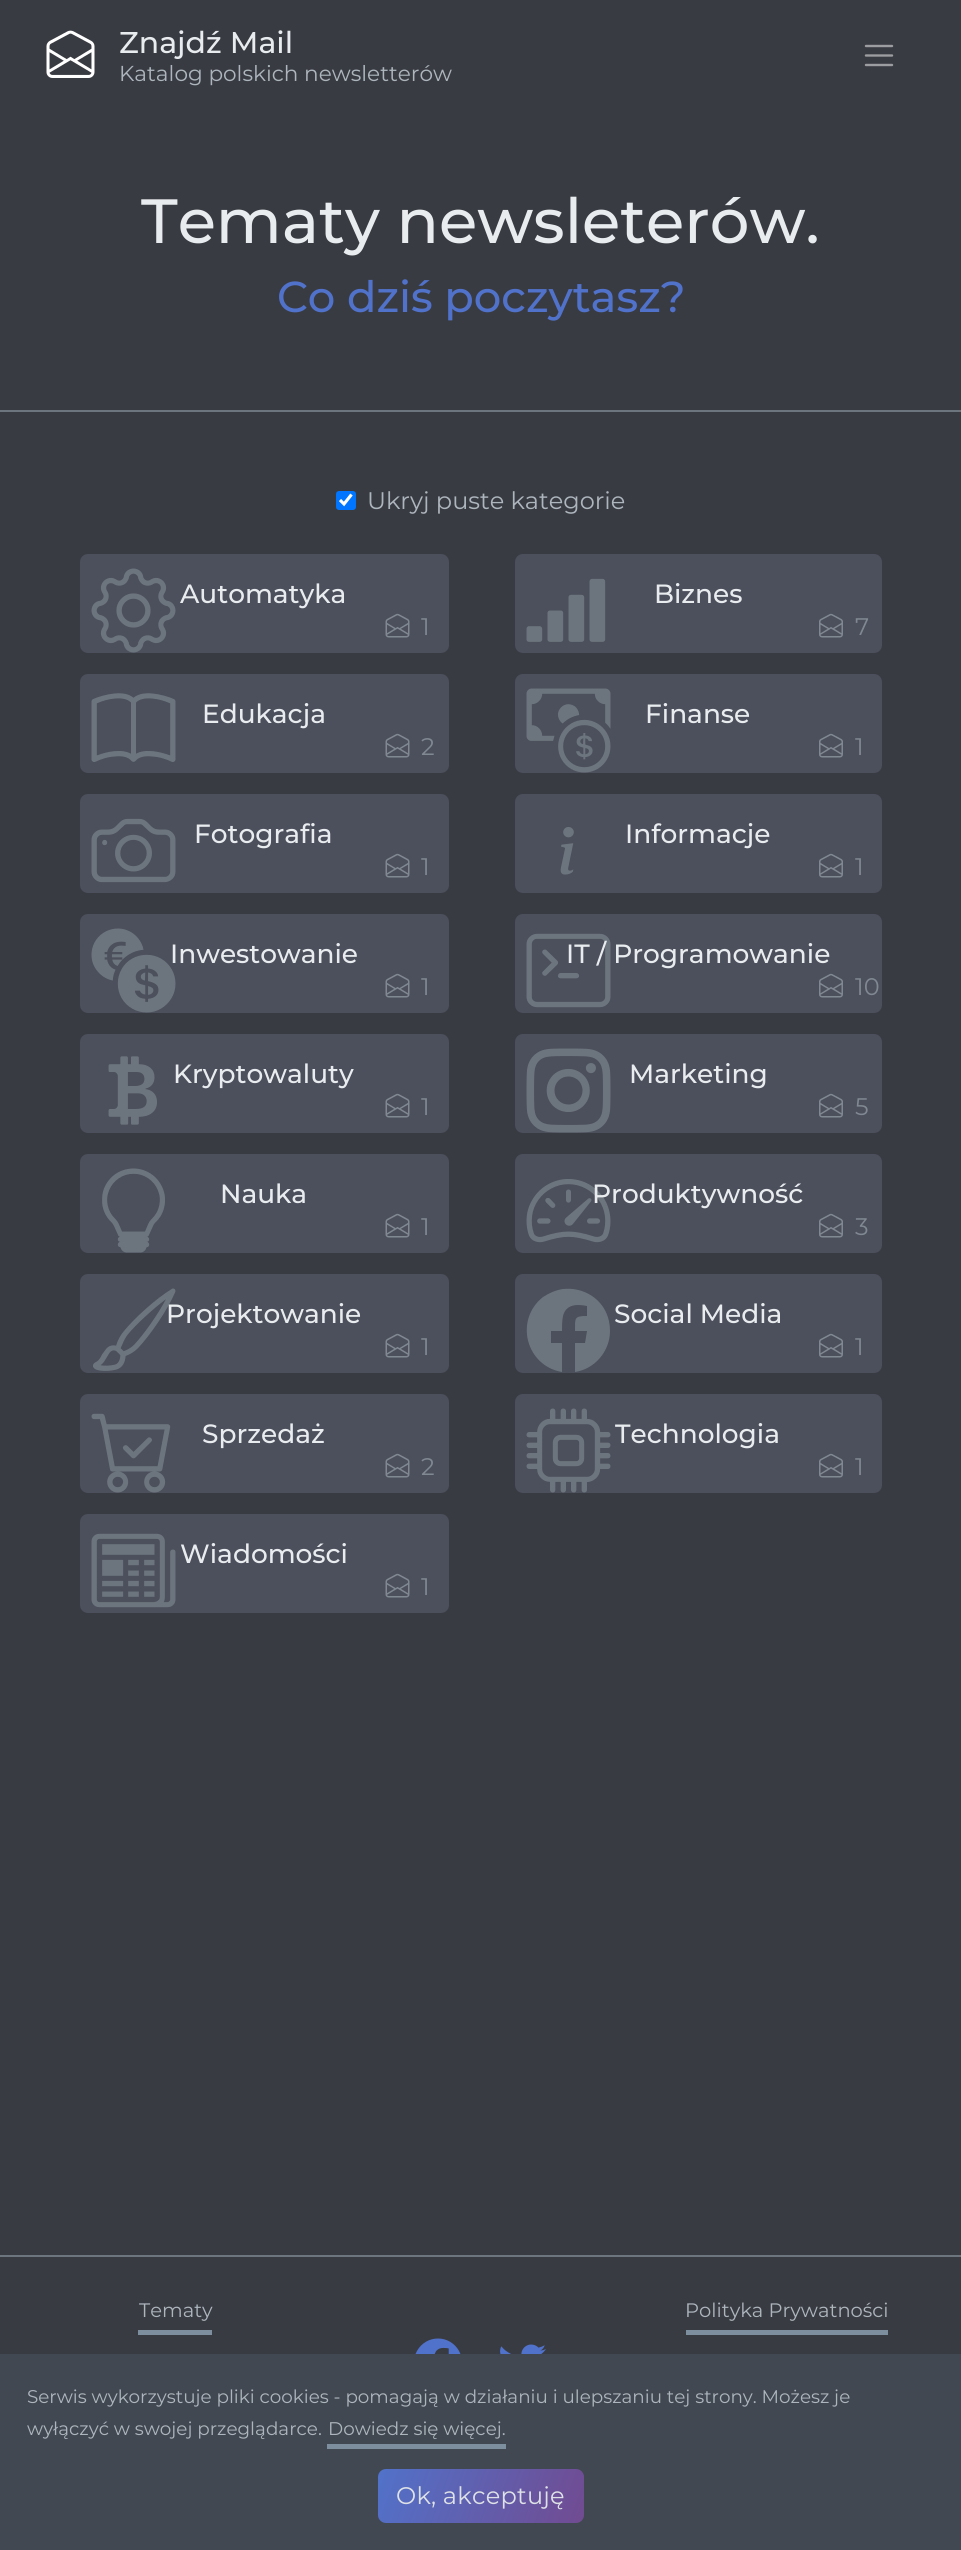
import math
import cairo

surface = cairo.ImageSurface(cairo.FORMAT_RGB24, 961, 2550)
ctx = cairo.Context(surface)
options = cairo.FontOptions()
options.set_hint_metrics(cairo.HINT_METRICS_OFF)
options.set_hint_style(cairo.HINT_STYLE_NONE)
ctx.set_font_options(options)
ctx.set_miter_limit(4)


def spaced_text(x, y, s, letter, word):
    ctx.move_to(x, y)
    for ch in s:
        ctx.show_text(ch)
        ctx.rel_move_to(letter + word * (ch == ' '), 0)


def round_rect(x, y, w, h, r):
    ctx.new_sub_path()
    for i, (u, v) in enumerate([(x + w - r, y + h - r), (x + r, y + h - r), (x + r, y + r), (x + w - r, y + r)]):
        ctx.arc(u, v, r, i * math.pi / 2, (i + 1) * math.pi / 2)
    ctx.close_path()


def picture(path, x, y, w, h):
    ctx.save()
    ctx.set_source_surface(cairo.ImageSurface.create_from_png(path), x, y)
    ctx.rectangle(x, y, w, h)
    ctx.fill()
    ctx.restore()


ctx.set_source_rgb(0.224, 0.231, 0.259)
ctx.paint()
picture("img1.png", 46, 30, 49, 48)
ctx.select_font_face("Montserrat Medium")
ctx.set_font_size(30)
ctx.set_source_rgb(0.914, 0.925, 0.937)
ctx.move_to(119, 53)
ctx.show_text("Znajdź Mail")
ctx.select_font_face("Montserrat")
ctx.set_font_size(21.6)
ctx.set_source_rgb(0.678, 0.71, 0.741)
ctx.move_to(119, 81)
ctx.show_text("Katalog polskich newsletterów")
ctx.new_path()
ctx.move_to(866, 46)
ctx.line_to(892, 46)
ctx.move_to(866, 55.5)
ctx.line_to(892, 55.5)
ctx.move_to(866, 65)
ctx.line_to(892, 65)
ctx.set_source_rgb(0.612, 0.616, 0.631)
ctx.set_line_width(2.4)
ctx.set_line_cap(cairo.LINE_CAP_ROUND)
ctx.stroke()
ctx.set_source_rgb(0.424, 0.459, 0.49)
ctx.rectangle(0, 410, 961, 2)
ctx.fill()
ctx.select_font_face("Montserrat Medium")
ctx.set_font_size(62.4)
ctx.set_source_rgb(0.914, 0.925, 0.937)
ctx.move_to(141, 243)
ctx.show_text("Tematy newsleterów.")
ctx.set_font_size(43.25)
ctx.set_source_rgb(0.318, 0.447, 0.792)
ctx.move_to(277, 312)
ctx.show_text("Co dziś poczytasz?")
ctx.set_source_rgb(0, 0.459, 1)
round_rect(336, 491, 20, 19, 3)
ctx.fill()
ctx.new_path()
ctx.move_to(340, 500)
ctx.line_to(344, 504)
ctx.line_to(351.5, 494.5)
ctx.set_source_rgb(1, 1, 1)
ctx.set_line_width(3.1)
ctx.set_line_cap(cairo.LINE_CAP_BUTT)
ctx.stroke()
ctx.select_font_face("Montserrat")
ctx.set_font_size(24)
ctx.set_source_rgb(0.678, 0.71, 0.741)
ctx.move_to(367, 509)
ctx.show_text("Ukryj puste kategorie")
ctx.set_source_rgb(0.298, 0.31, 0.361)
round_rect(80, 554, 369, 99, 8)
ctx.fill()
picture("img2.png", 91, 568, 85, 85)
ctx.select_font_face("Montserrat Medium")
ctx.set_font_size(26.4)
ctx.set_source_rgb(0.914, 0.925, 0.937)
ctx.move_to(180, 603)
ctx.show_text("Automatyka")
picture("img3.png", 385, 613, 25, 25)
ctx.select_font_face("Montserrat")
ctx.set_font_size(24)
ctx.set_source_rgb(0.502, 0.533, 0.569)
ctx.move_to(421, 635)
ctx.show_text("1")
ctx.set_source_rgb(0.298, 0.31, 0.361)
round_rect(515, 554, 367, 99, 8)
ctx.fill()
picture("img4.png", 526, 578, 80, 64)
ctx.select_font_face("Montserrat Medium")
ctx.set_font_size(26.4)
ctx.set_source_rgb(0.914, 0.925, 0.937)
ctx.move_to(654, 603)
ctx.show_text("Biznes")
picture("img5.png", 819, 613, 24, 25)
ctx.select_font_face("Montserrat")
ctx.set_font_size(24)
ctx.set_source_rgb(0.502, 0.533, 0.569)
ctx.move_to(855, 635)
ctx.show_text("7")
ctx.set_source_rgb(0.298, 0.31, 0.361)
round_rect(80, 674, 369, 99, 8)
ctx.fill()
picture("img6.png", 91, 693, 85, 69)
ctx.select_font_face("Montserrat Medium")
ctx.set_font_size(26.4)
ctx.set_source_rgb(0.914, 0.925, 0.937)
ctx.move_to(202, 723)
ctx.show_text("Edukacja")
picture("img3.png", 385, 733, 25, 25)
ctx.select_font_face("Montserrat")
ctx.set_font_size(24)
ctx.set_source_rgb(0.502, 0.533, 0.569)
ctx.move_to(421, 755)
ctx.show_text("2")
ctx.set_source_rgb(0.298, 0.31, 0.361)
round_rect(515, 674, 367, 99, 8)
ctx.fill()
picture("img7.png", 526, 688, 85, 85)
ctx.select_font_face("Montserrat Medium")
ctx.set_font_size(26.4)
ctx.set_source_rgb(0.914, 0.925, 0.937)
ctx.move_to(645, 723)
ctx.show_text("Finanse")
picture("img5.png", 819, 733, 24, 25)
ctx.select_font_face("Montserrat")
ctx.set_font_size(24)
ctx.set_source_rgb(0.502, 0.533, 0.569)
ctx.move_to(855, 755)
ctx.show_text("1")
ctx.set_source_rgb(0.298, 0.31, 0.361)
round_rect(80, 794, 369, 99, 8)
ctx.fill()
picture("img8.png", 91, 818, 85, 65)
ctx.select_font_face("Montserrat Medium")
ctx.set_font_size(26.4)
ctx.set_source_rgb(0.914, 0.925, 0.937)
ctx.move_to(194, 843)
ctx.show_text("Fotografia")
picture("img3.png", 385, 853, 25, 25)
ctx.select_font_face("Montserrat")
ctx.set_font_size(24)
ctx.set_source_rgb(0.502, 0.533, 0.569)
ctx.move_to(421, 875)
ctx.show_text("1")
ctx.set_source_rgb(0.298, 0.31, 0.361)
round_rect(515, 794, 367, 99, 8)
ctx.fill()
picture("img9.png", 560, 827, 14, 48)
ctx.select_font_face("Montserrat Medium")
ctx.set_font_size(26.4)
ctx.set_source_rgb(0.914, 0.925, 0.937)
ctx.move_to(625, 843)
ctx.show_text("Informacje")
picture("img5.png", 819, 853, 24, 25)
ctx.select_font_face("Montserrat")
ctx.set_font_size(24)
ctx.set_source_rgb(0.502, 0.533, 0.569)
ctx.move_to(855, 875)
ctx.show_text("1")
ctx.set_source_rgb(0.298, 0.31, 0.361)
round_rect(80, 914, 369, 99, 8)
ctx.fill()
picture("img10.png", 91, 928, 85, 85)
ctx.select_font_face("Montserrat Medium")
ctx.set_font_size(26.4)
ctx.set_source_rgb(0.914, 0.925, 0.937)
ctx.move_to(170, 963)
ctx.show_text("Inwestowanie")
picture("img3.png", 385, 973, 25, 25)
ctx.select_font_face("Montserrat")
ctx.set_font_size(24)
ctx.set_source_rgb(0.502, 0.533, 0.569)
ctx.move_to(421, 995)
ctx.show_text("1")
ctx.set_source_rgb(0.298, 0.31, 0.361)
round_rect(515, 914, 367, 99, 8)
ctx.fill()
picture("img11.png", 526, 933, 85, 75)
ctx.select_font_face("Montserrat Medium")
ctx.set_font_size(26.4)
ctx.set_source_rgb(0.914, 0.925, 0.937)
ctx.move_to(566, 963)
ctx.show_text("IT / Programowanie")
picture("img5.png", 819, 973, 24, 25)
ctx.select_font_face("Montserrat")
ctx.set_font_size(24)
ctx.set_source_rgb(0.502, 0.533, 0.569)
ctx.move_to(855, 995)
ctx.show_text("10")
ctx.set_source_rgb(0.298, 0.31, 0.361)
round_rect(80, 1034, 369, 99, 8)
ctx.fill()
picture("img12.png", 108, 1056, 49, 69)
ctx.select_font_face("Montserrat Medium")
ctx.set_font_size(26.4)
ctx.set_source_rgb(0.914, 0.925, 0.937)
ctx.move_to(173, 1083)
ctx.show_text("Kryptowaluty")
picture("img3.png", 385, 1093, 25, 25)
ctx.select_font_face("Montserrat")
ctx.set_font_size(24)
ctx.set_source_rgb(0.502, 0.533, 0.569)
ctx.move_to(421, 1115)
ctx.show_text("1")
ctx.set_source_rgb(0.298, 0.31, 0.361)
round_rect(515, 1034, 367, 99, 8)
ctx.fill()
picture("img13.png", 526, 1048, 85, 85)
ctx.select_font_face("Montserrat Medium")
ctx.set_font_size(26.4)
ctx.set_source_rgb(0.914, 0.925, 0.937)
ctx.move_to(629, 1083)
ctx.show_text("Marketing")
picture("img5.png", 819, 1093, 24, 25)
ctx.select_font_face("Montserrat")
ctx.set_font_size(24)
ctx.set_source_rgb(0.502, 0.533, 0.569)
ctx.move_to(855, 1115)
ctx.show_text("5")
ctx.set_source_rgb(0.298, 0.31, 0.361)
round_rect(80, 1154, 369, 99, 8)
ctx.fill()
picture("img14.png", 102, 1168, 63, 85)
ctx.select_font_face("Montserrat Medium")
ctx.set_font_size(26.4)
ctx.set_source_rgb(0.914, 0.925, 0.937)
ctx.move_to(220, 1203)
ctx.show_text("Nauka")
picture("img3.png", 385, 1213, 25, 25)
ctx.select_font_face("Montserrat")
ctx.set_font_size(24)
ctx.set_source_rgb(0.502, 0.533, 0.569)
ctx.move_to(421, 1235)
ctx.show_text("1")
ctx.set_source_rgb(0.298, 0.31, 0.361)
round_rect(515, 1154, 367, 99, 8)
ctx.fill()
picture("img15.png", 526, 1179, 85, 64)
ctx.select_font_face("Montserrat Medium")
ctx.set_font_size(26.4)
ctx.set_source_rgb(0.914, 0.925, 0.937)
ctx.move_to(592, 1203)
ctx.show_text("Produktywność")
picture("img5.png", 819, 1213, 24, 25)
ctx.select_font_face("Montserrat")
ctx.set_font_size(24)
ctx.set_source_rgb(0.502, 0.533, 0.569)
ctx.move_to(855, 1235)
ctx.show_text("3")
ctx.set_source_rgb(0.298, 0.31, 0.361)
round_rect(80, 1274, 369, 99, 8)
ctx.fill()
picture("img16.png", 93, 1288, 83, 83)
ctx.select_font_face("Montserrat Medium")
ctx.set_font_size(26.4)
ctx.set_source_rgb(0.914, 0.925, 0.937)
ctx.move_to(166, 1323)
ctx.show_text("Projektowanie")
picture("img3.png", 385, 1333, 25, 25)
ctx.select_font_face("Montserrat")
ctx.set_font_size(24)
ctx.set_source_rgb(0.502, 0.533, 0.569)
ctx.move_to(421, 1355)
ctx.show_text("1")
ctx.set_source_rgb(0.298, 0.31, 0.361)
round_rect(515, 1274, 367, 99, 8)
ctx.fill()
ctx.set_source_rgb(0.424, 0.459, 0.49)
ctx.new_path()
ctx.move_to(610, 1331)
ctx.curve_to(610, 1317, 604, 1304, 592, 1296)
ctx.curve_to(583, 1290, 573, 1288, 563, 1289)
ctx.curve_to(556, 1290, 549, 1293, 543, 1297)
ctx.curve_to(514, 1320, 526, 1366, 562, 1372)
ctx.line_to(562, 1343)
ctx.line_to(551, 1343)
ctx.line_to(551, 1331)
ctx.line_to(562, 1331)
ctx.curve_to(562, 1326, 562, 1321, 563, 1316)
ctx.curve_to(566, 1304, 577, 1304, 587, 1306)
ctx.line_to(587, 1316)
ctx.curve_to(574, 1316, 575, 1318, 575, 1331)
ctx.line_to(587, 1331)
ctx.line_to(585, 1343)
ctx.line_to(575, 1343)
ctx.line_to(575, 1372)
ctx.curve_to(595, 1369, 610, 1351, 610, 1331)
ctx.close_path()
ctx.fill()
ctx.select_font_face("Montserrat Medium")
ctx.set_font_size(26.4)
ctx.set_source_rgb(0.914, 0.925, 0.937)
ctx.move_to(614, 1323)
ctx.show_text("Social Media")
picture("img5.png", 819, 1333, 24, 25)
ctx.select_font_face("Montserrat")
ctx.set_font_size(24)
ctx.set_source_rgb(0.502, 0.533, 0.569)
ctx.move_to(855, 1355)
ctx.show_text("1")
ctx.set_source_rgb(0.298, 0.31, 0.361)
round_rect(80, 1394, 369, 99, 8)
ctx.fill()
picture("img17.png", 91, 1413, 80, 80)
ctx.select_font_face("Montserrat Medium")
ctx.set_font_size(26.4)
ctx.set_source_rgb(0.914, 0.925, 0.937)
ctx.move_to(202, 1443)
ctx.show_text("Sprzedaż")
picture("img3.png", 385, 1453, 25, 25)
ctx.select_font_face("Montserrat")
ctx.set_font_size(24)
ctx.set_source_rgb(0.502, 0.533, 0.569)
ctx.move_to(421, 1475)
ctx.show_text("2")
ctx.set_source_rgb(0.298, 0.31, 0.361)
round_rect(515, 1394, 367, 99, 8)
ctx.fill()
picture("img18.png", 526, 1408, 85, 85)
ctx.select_font_face("Montserrat Medium")
ctx.set_font_size(26.4)
ctx.set_source_rgb(0.914, 0.925, 0.937)
ctx.move_to(615, 1443)
ctx.show_text("Technologia")
picture("img5.png", 819, 1453, 24, 25)
ctx.select_font_face("Montserrat")
ctx.set_font_size(24)
ctx.set_source_rgb(0.502, 0.533, 0.569)
ctx.move_to(855, 1475)
ctx.show_text("1")
ctx.set_source_rgb(0.298, 0.31, 0.361)
round_rect(80, 1514, 369, 99, 8)
ctx.fill()
picture("img19.png", 91, 1533, 85, 75)
ctx.select_font_face("Montserrat Medium")
ctx.set_font_size(26.4)
ctx.set_source_rgb(0.914, 0.925, 0.937)
ctx.move_to(180, 1563)
ctx.show_text("Wiadomości")
picture("img3.png", 385, 1573, 25, 25)
ctx.select_font_face("Montserrat")
ctx.set_font_size(24)
ctx.set_source_rgb(0.502, 0.533, 0.569)
ctx.move_to(421, 1595)
ctx.show_text("1")
ctx.set_source_rgb(0.424, 0.459, 0.49)
ctx.rectangle(0, 2255, 961, 2)
ctx.fill()
ctx.set_source_rgb(0.49, 0.557, 0.62)
ctx.rectangle(138, 2330, 74, 5)
ctx.fill()
ctx.set_font_size(19.5)
ctx.set_source_rgb(0.678, 0.71, 0.741)
ctx.move_to(139, 2317)
ctx.show_text("Tematy")
ctx.set_source_rgb(0.49, 0.557, 0.62)
ctx.rectangle(686, 2330, 202, 5)
ctx.fill()
ctx.set_source_rgb(0.678, 0.71, 0.741)
ctx.move_to(685, 2317)
ctx.show_text("Polityka Prywatności")
picture("img20.png", 415, 2338, 46, 16)
picture("img21.png", 500, 2344, 46, 10)
ctx.set_source_rgb(0.259, 0.282, 0.318)
ctx.rectangle(0, 2354, 961, 196)
ctx.fill()
ctx.set_font_size(18.35)
ctx.set_source_rgb(0.678, 0.71, 0.741)
ctx.move_to(27, 2403)
ctx.show_text("Serwis wykorzystuje pliki cookies - pomagają w działaniu i ulepszaniu tej strony. Możesz je")
ctx.move_to(27, 2435)
ctx.show_text("wyłączyć w swojej przeglądarce.")
ctx.move_to(328, 2435)
ctx.show_text("Dowiedz się więcej.")
ctx.set_source_rgb(0.49, 0.557, 0.62)
ctx.rectangle(327, 2444, 179, 5)
ctx.fill()
gradient = cairo.LinearGradient(381, 2460, 580, 2532)
gradient.add_color_stop_rgba(0, 0.318, 0.447, 0.792, 1)
gradient.add_color_stop_rgba(1, 0.443, 0.294, 0.569, 1)
ctx.set_source(gradient)
round_rect(378, 2469, 206, 54, 8)
ctx.fill()
ctx.set_font_size(24)
ctx.set_source_rgb(0.871, 0.886, 0.902)
spaced_text(396, 2504, "Ok, akceptuję", 0.25, 0)
surface.write_to_png("page.png")
